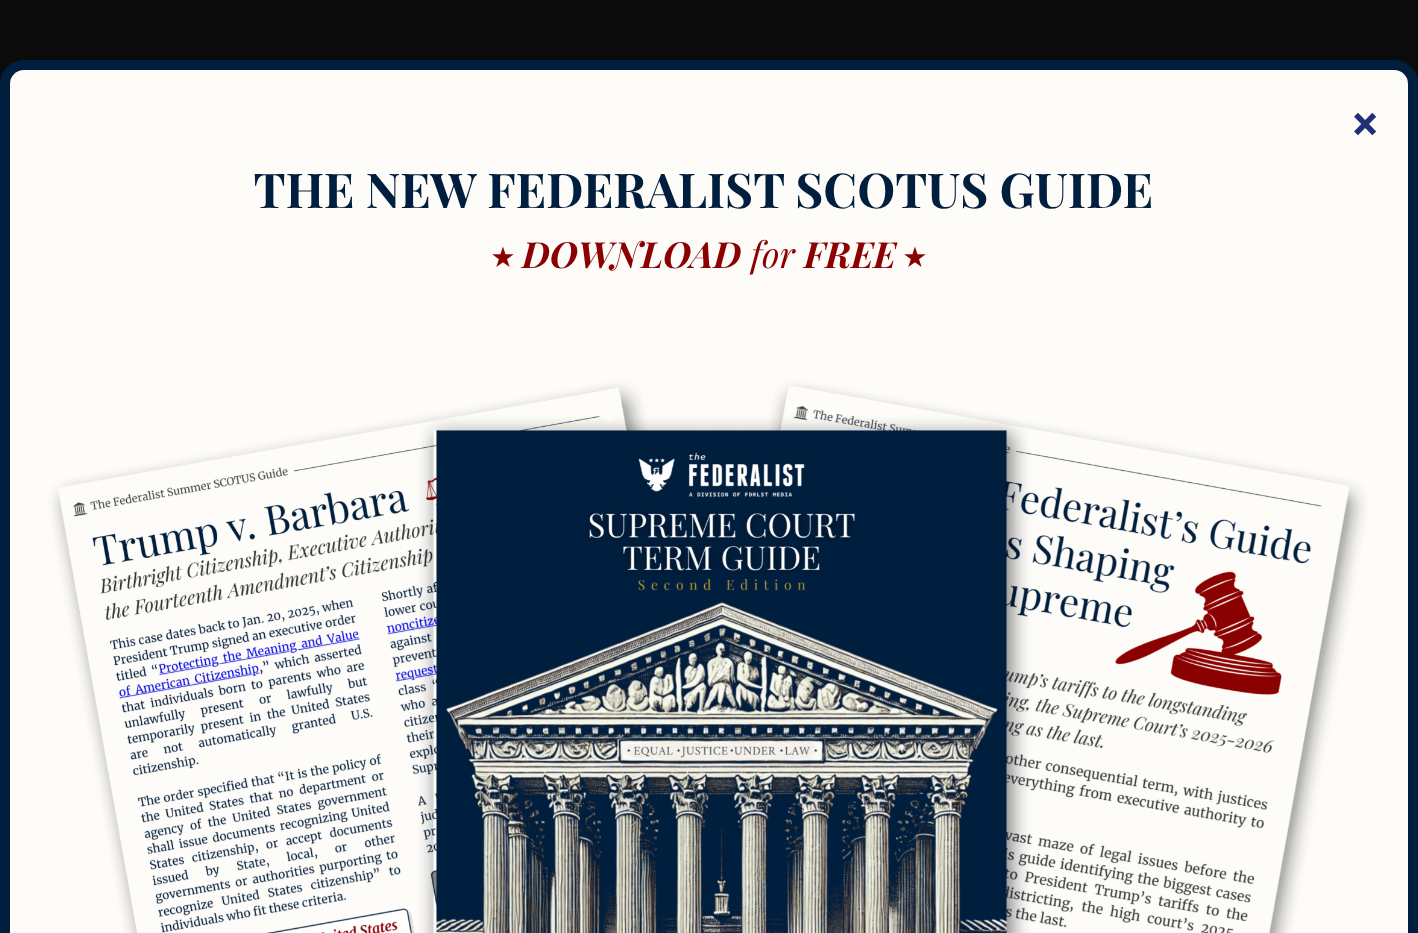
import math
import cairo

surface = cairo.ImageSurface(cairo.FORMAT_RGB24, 1418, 933)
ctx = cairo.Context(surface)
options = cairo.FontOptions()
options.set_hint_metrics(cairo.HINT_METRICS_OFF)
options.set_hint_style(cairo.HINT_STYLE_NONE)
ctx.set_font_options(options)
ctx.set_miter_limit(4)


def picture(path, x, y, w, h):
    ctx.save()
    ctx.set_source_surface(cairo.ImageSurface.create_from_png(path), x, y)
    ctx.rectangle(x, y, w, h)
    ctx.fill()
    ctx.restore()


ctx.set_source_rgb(0.043, 0.043, 0.043)
ctx.paint()
picture("img1.png", 0, 60, 1418, 873)
surface.write_to_png("page.png")
